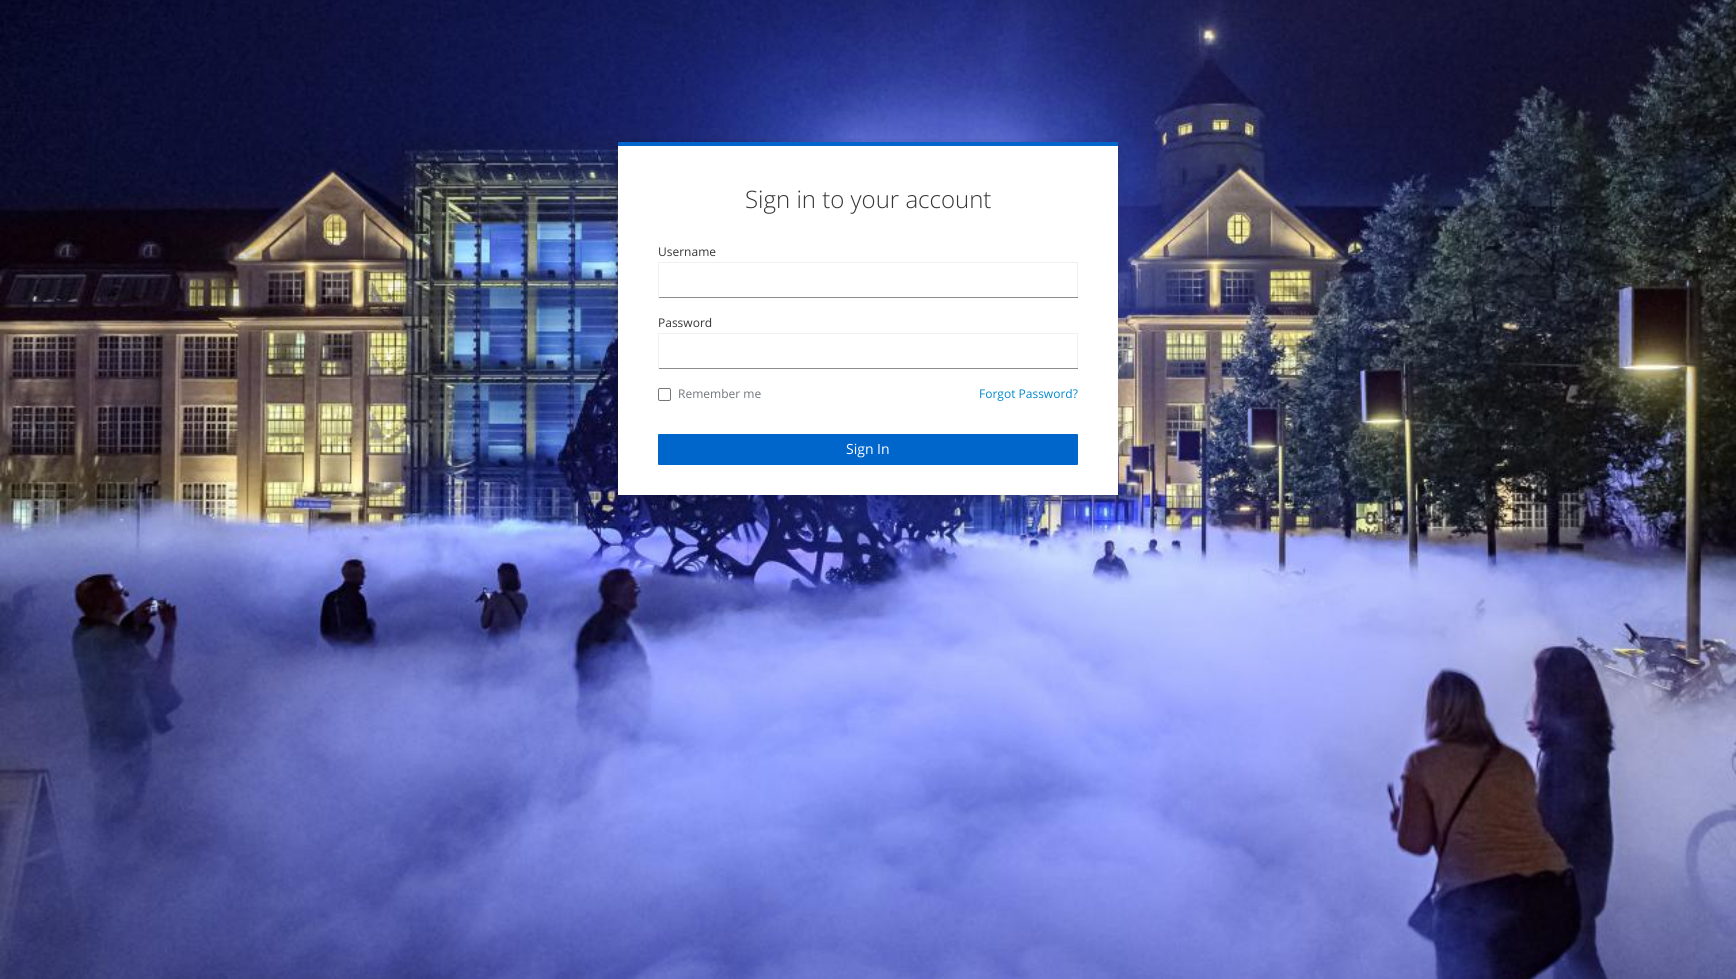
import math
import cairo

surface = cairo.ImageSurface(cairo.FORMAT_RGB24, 1736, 979)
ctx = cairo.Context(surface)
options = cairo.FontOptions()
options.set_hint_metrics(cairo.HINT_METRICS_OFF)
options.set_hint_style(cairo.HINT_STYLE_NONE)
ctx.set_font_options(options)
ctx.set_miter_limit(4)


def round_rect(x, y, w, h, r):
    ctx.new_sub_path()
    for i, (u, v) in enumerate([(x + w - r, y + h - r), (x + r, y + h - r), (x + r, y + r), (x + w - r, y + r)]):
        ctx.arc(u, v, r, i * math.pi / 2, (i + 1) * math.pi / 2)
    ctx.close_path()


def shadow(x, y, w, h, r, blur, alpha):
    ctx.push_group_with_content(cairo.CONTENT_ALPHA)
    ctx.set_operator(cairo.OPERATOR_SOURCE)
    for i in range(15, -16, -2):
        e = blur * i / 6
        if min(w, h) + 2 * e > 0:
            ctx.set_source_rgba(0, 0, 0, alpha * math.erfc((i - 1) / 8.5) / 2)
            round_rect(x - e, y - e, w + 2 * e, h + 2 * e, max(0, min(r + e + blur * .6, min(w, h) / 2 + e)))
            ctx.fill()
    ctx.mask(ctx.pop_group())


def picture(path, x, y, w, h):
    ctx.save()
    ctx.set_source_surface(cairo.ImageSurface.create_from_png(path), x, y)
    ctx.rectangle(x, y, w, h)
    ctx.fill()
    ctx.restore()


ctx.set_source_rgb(1, 1, 1)
ctx.paint()
picture("img1.png", 0, 0, 1736, 979)
ctx.set_source_rgb(0.012, 0.012, 0.012)
shadow(618, 142, 500, 353, 0, 3, 0.08)
shadow(618, 150, 500, 353, 0, 8, 0.16)
ctx.set_source_rgb(1, 1, 1)
ctx.rectangle(618, 146, 500, 349)
ctx.fill()
ctx.set_source_rgb(0, 0.4, 0.8)
ctx.rectangle(618, 142, 500, 4)
ctx.fill()
ctx.select_font_face("Open Sans Light")
ctx.set_font_size(24)
ctx.set_source_rgb(0.212, 0.212, 0.212)
ctx.move_to(745, 208)
ctx.show_text("Sign in to your account")
ctx.select_font_face("Open Sans")
ctx.set_font_size(12)
ctx.move_to(658, 256)
ctx.show_text("Username")
ctx.set_source_rgb(0.941, 0.941, 0.941)
ctx.rectangle(658, 262, 420, 1)
ctx.fill()
ctx.rectangle(1077, 262, 1, 36)
ctx.fill()
ctx.set_source_rgb(0.541, 0.553, 0.565)
ctx.rectangle(658, 297, 420, 1)
ctx.fill()
ctx.set_source_rgb(0.941, 0.941, 0.941)
ctx.rectangle(658, 262, 1, 36)
ctx.fill()
ctx.set_source_rgb(0.212, 0.212, 0.212)
ctx.move_to(658, 327)
ctx.show_text("Password")
ctx.set_source_rgb(0.941, 0.941, 0.941)
ctx.rectangle(658, 333, 420, 1)
ctx.fill()
ctx.rectangle(1077, 333, 1, 36)
ctx.fill()
ctx.set_source_rgb(0.541, 0.553, 0.565)
ctx.rectangle(658, 368, 420, 1)
ctx.fill()
ctx.set_source_rgb(0.941, 0.941, 0.941)
ctx.rectangle(658, 333, 1, 36)
ctx.fill()
round_rect(658.5, 388.5, 12, 12, 1.5)
ctx.set_source_rgb(0.463, 0.463, 0.463)
ctx.set_line_width(1)
ctx.stroke()
ctx.set_source_rgb(0.447, 0.463, 0.482)
ctx.move_to(678, 398)
ctx.show_text("Remember me")
ctx.set_source_rgb(0, 0.533, 0.808)
ctx.move_to(979, 398)
ctx.show_text("Forgot Password?")
ctx.set_source_rgb(0, 0.4, 0.8)
round_rect(658, 434, 420, 31, 1)
ctx.fill()
ctx.set_font_size(14)
ctx.set_source_rgb(1, 1, 1)
ctx.move_to(846, 454)
ctx.show_text("Sign In")
surface.write_to_png("page.png")
